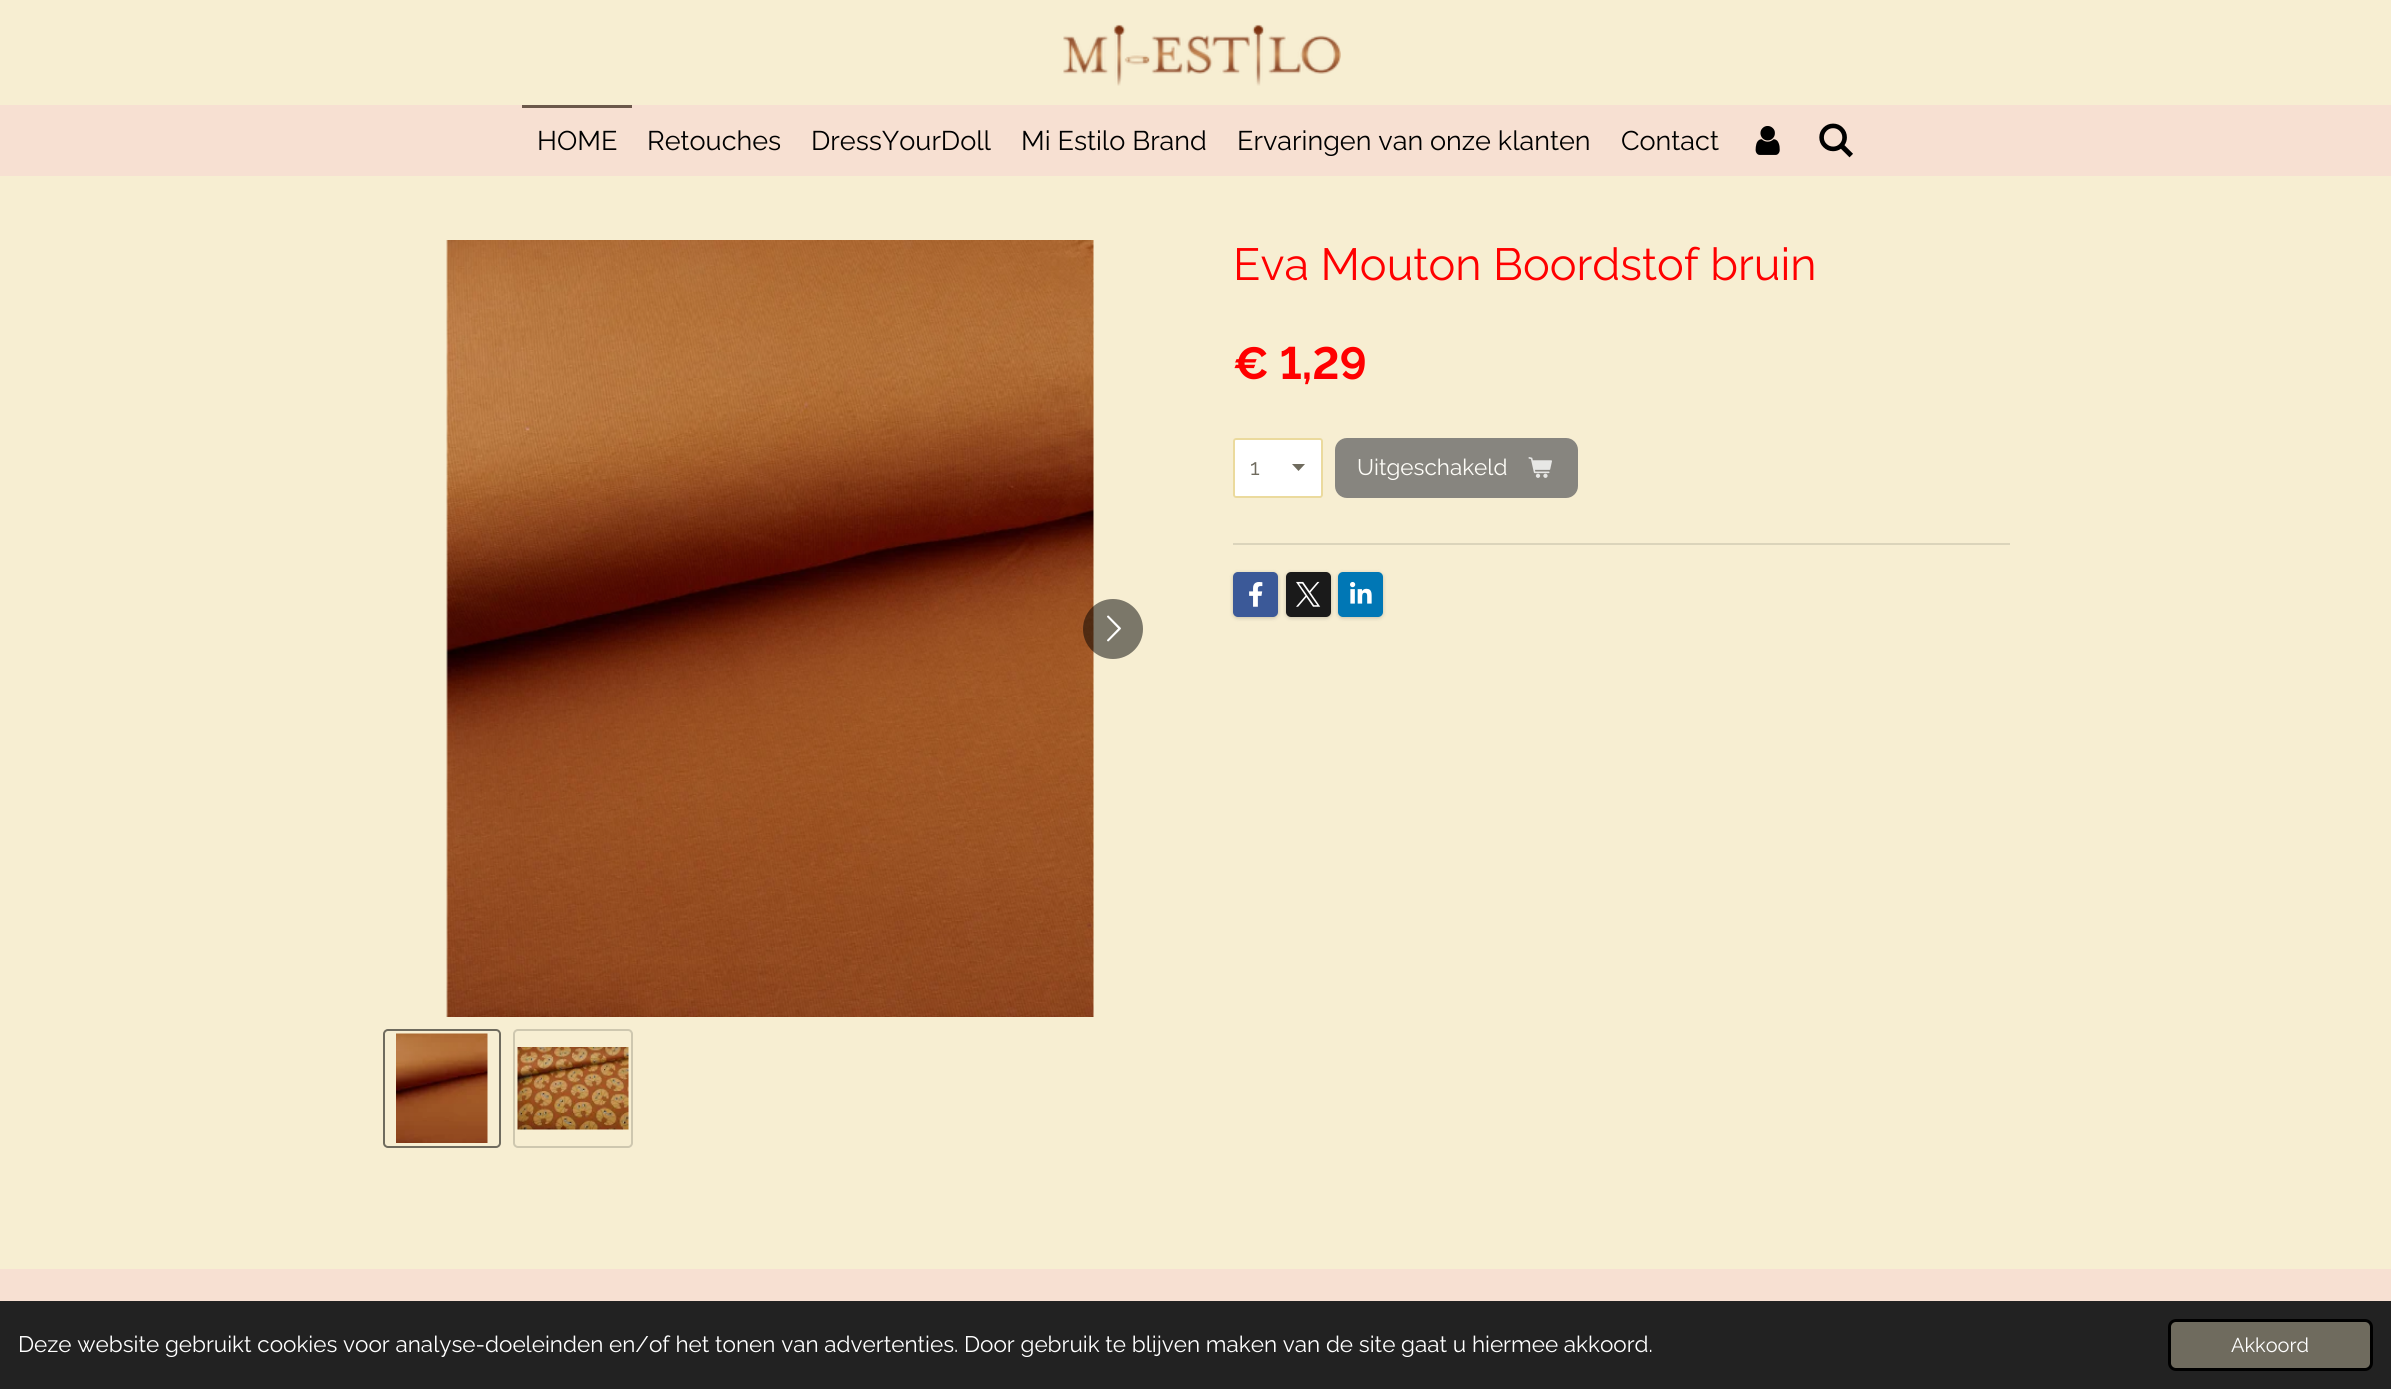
import math
import cairo

surface = cairo.ImageSurface(cairo.FORMAT_RGB24, 2391, 1389)
ctx = cairo.Context(surface)
options = cairo.FontOptions()
options.set_hint_metrics(cairo.HINT_METRICS_OFF)
options.set_hint_style(cairo.HINT_STYLE_NONE)
ctx.set_font_options(options)
ctx.set_miter_limit(4)


def round_rect(x, y, w, h, r):
    ctx.new_sub_path()
    for i, (u, v) in enumerate([(x + w - r, y + h - r), (x + r, y + h - r), (x + r, y + r), (x + w - r, y + r)]):
        ctx.arc(u, v, r, i * math.pi / 2, (i + 1) * math.pi / 2)
    ctx.close_path()


def shadow(x, y, w, h, r, blur, alpha):
    ctx.push_group_with_content(cairo.CONTENT_ALPHA)
    ctx.set_operator(cairo.OPERATOR_SOURCE)
    for i in range(15, -16, -2):
        e = blur * i / 6
        if min(w, h) + 2 * e > 0:
            ctx.set_source_rgba(0, 0, 0, alpha * math.erfc((i - 1) / 8.5) / 2)
            round_rect(x - e, y - e, w + 2 * e, h + 2 * e, max(0, min(r + e + blur * .6, min(w, h) / 2 + e)))
            ctx.fill()
    ctx.mask(ctx.pop_group())


def picture(path, x, y, w, h):
    ctx.save()
    ctx.set_source_surface(cairo.ImageSurface.create_from_png(path), x, y)
    ctx.rectangle(x, y, w, h)
    ctx.fill()
    ctx.restore()


ctx.set_source_rgb(0.965, 0.933, 0.824)
ctx.paint()
picture("img1.png", 1063, 24, 278, 62)
ctx.set_source_rgb(0.965, 0.878, 0.824)
ctx.rectangle(0, 105, 2391, 71)
ctx.fill()
ctx.set_source_rgb(0.42, 0.345, 0.294)
ctx.rectangle(522, 105, 110, 3)
ctx.fill()
ctx.select_font_face("Raleway")
ctx.set_font_size(27)
ctx.set_source_rgb(0, 0, 0)
ctx.move_to(537, 150)
ctx.show_text("HOME")
ctx.move_to(647, 150)
ctx.show_text("Retouches")
ctx.move_to(811, 150)
ctx.show_text("DressYourDoll")
ctx.move_to(1021, 150)
ctx.show_text("Mi Estilo Brand")
ctx.move_to(1237, 150)
ctx.show_text("Ervaringen van onze klanten")
ctx.move_to(1621, 150)
ctx.show_text("Contact")
picture("img2.png", 1755, 126, 25, 29)
picture("img3.png", 1819, 123, 34, 35)
picture("img4.png", 446, 240, 648, 777)
ctx.set_source_rgba(0, 0, 0, 0.5)
ctx.arc(1113, 629, 30, 0, 2 * math.pi)
ctx.fill()
picture("img5.png", 1107, 615, 14, 27)
round_rect(384, 1030, 116, 117, 4)
ctx.set_source_rgb(0.435, 0.42, 0.369)
ctx.stroke()
picture("img6.png", 396, 1033, 92, 110)
round_rect(514, 1030, 118, 117, 4)
ctx.set_source_rgb(0.808, 0.78, 0.686)
ctx.stroke()
picture("img7.png", 517, 1047, 112, 83)
ctx.set_font_size(45)
ctx.set_source_rgb(1, 0, 0)
ctx.move_to(1233, 280)
ctx.show_text("Eva Mouton Boordstof bruin")
ctx.select_font_face("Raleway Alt", cairo.FONT_SLANT_NORMAL, cairo.FONT_WEIGHT_BOLD)
ctx.move_to(1233, 379)
ctx.show_text("€ 1,29")
ctx.set_source_rgb(1, 1, 1)
round_rect(1233, 438, 90, 60, 3)
ctx.fill()
ctx.save()
ctx.rectangle(1292, 464, 15, 7)
ctx.clip()
ctx.set_source_rgb(0.435, 0.42, 0.369)
ctx.new_path()
ctx.move_to(1298.5, 471)
ctx.line_to(1291.5, 463.5)
ctx.line_to(1305.5, 463.5)
ctx.close_path()
ctx.fill()
ctx.restore()
round_rect(1234, 439, 88, 58, 2)
ctx.set_source_rgba(0.847, 0.714, 0.239, 0.5)
ctx.stroke()
ctx.select_font_face("Raleway")
ctx.set_font_size(22.5)
ctx.set_source_rgb(0.435, 0.42, 0.369)
ctx.move_to(1250, 475)
ctx.show_text("1")
ctx.set_source_rgb(0.529, 0.522, 0.498)
round_rect(1335, 438, 243, 60, 12)
ctx.fill()
ctx.set_source_rgb(0.992, 0.988, 0.965)
ctx.move_to(1357, 475)
ctx.show_text("Uitgeschakeld")
picture("img8.png", 1528, 457, 24, 21)
ctx.set_source_rgb(0.859, 0.831, 0.733)
ctx.rectangle(1233, 543, 777, 2)
ctx.fill()
ctx.set_source_rgb(0, 0, 0)
shadow(1233, 573, 45, 45, 5, 2, 0.2)
ctx.set_source_rgb(0.231, 0.349, 0.596)
round_rect(1233, 572, 45, 45, 5)
ctx.fill()
picture("img9.png", 1249, 582, 14, 25)
ctx.set_source_rgb(0, 0, 0)
shadow(1286, 573, 45, 45, 5, 2, 0.2)
ctx.set_source_rgb(0.102, 0.102, 0.102)
round_rect(1286, 572, 45, 45, 5)
ctx.fill()
picture("img10.png", 1296, 581, 25, 26)
ctx.set_source_rgb(0, 0, 0)
shadow(1338, 573, 45, 45, 5, 2, 0.2)
ctx.set_source_rgb(0, 0.467, 0.71)
round_rect(1338, 572, 45, 45, 5)
ctx.fill()
picture("img11.png", 1350, 582, 22, 22)
ctx.set_source_rgb(0.965, 0.878, 0.824)
ctx.rectangle(0, 1269, 2391, 32)
ctx.fill()
ctx.set_source_rgb(0.133, 0.133, 0.133)
ctx.rectangle(0, 1301, 2391, 88)
ctx.fill()
ctx.set_source_rgb(1, 1, 1)
ctx.move_to(18, 1352)
ctx.show_text("Deze website gebruikt cookies voor analyse-doeleinden en/of het tonen van advertenties. Door gebruik te blijven maken van de site gaat u hiermee akkoord.")
ctx.set_source_rgb(0.435, 0.42, 0.369)
round_rect(2169.5, 1320.5, 202, 49, 6.5)
ctx.fill_preserve()
ctx.set_source_rgb(0, 0, 0)
ctx.set_line_width(3)
ctx.stroke()
ctx.set_font_size(20)
ctx.set_source_rgb(1, 1, 1)
ctx.move_to(2231, 1352)
ctx.show_text("Akkoord")
surface.write_to_png("page.png")
